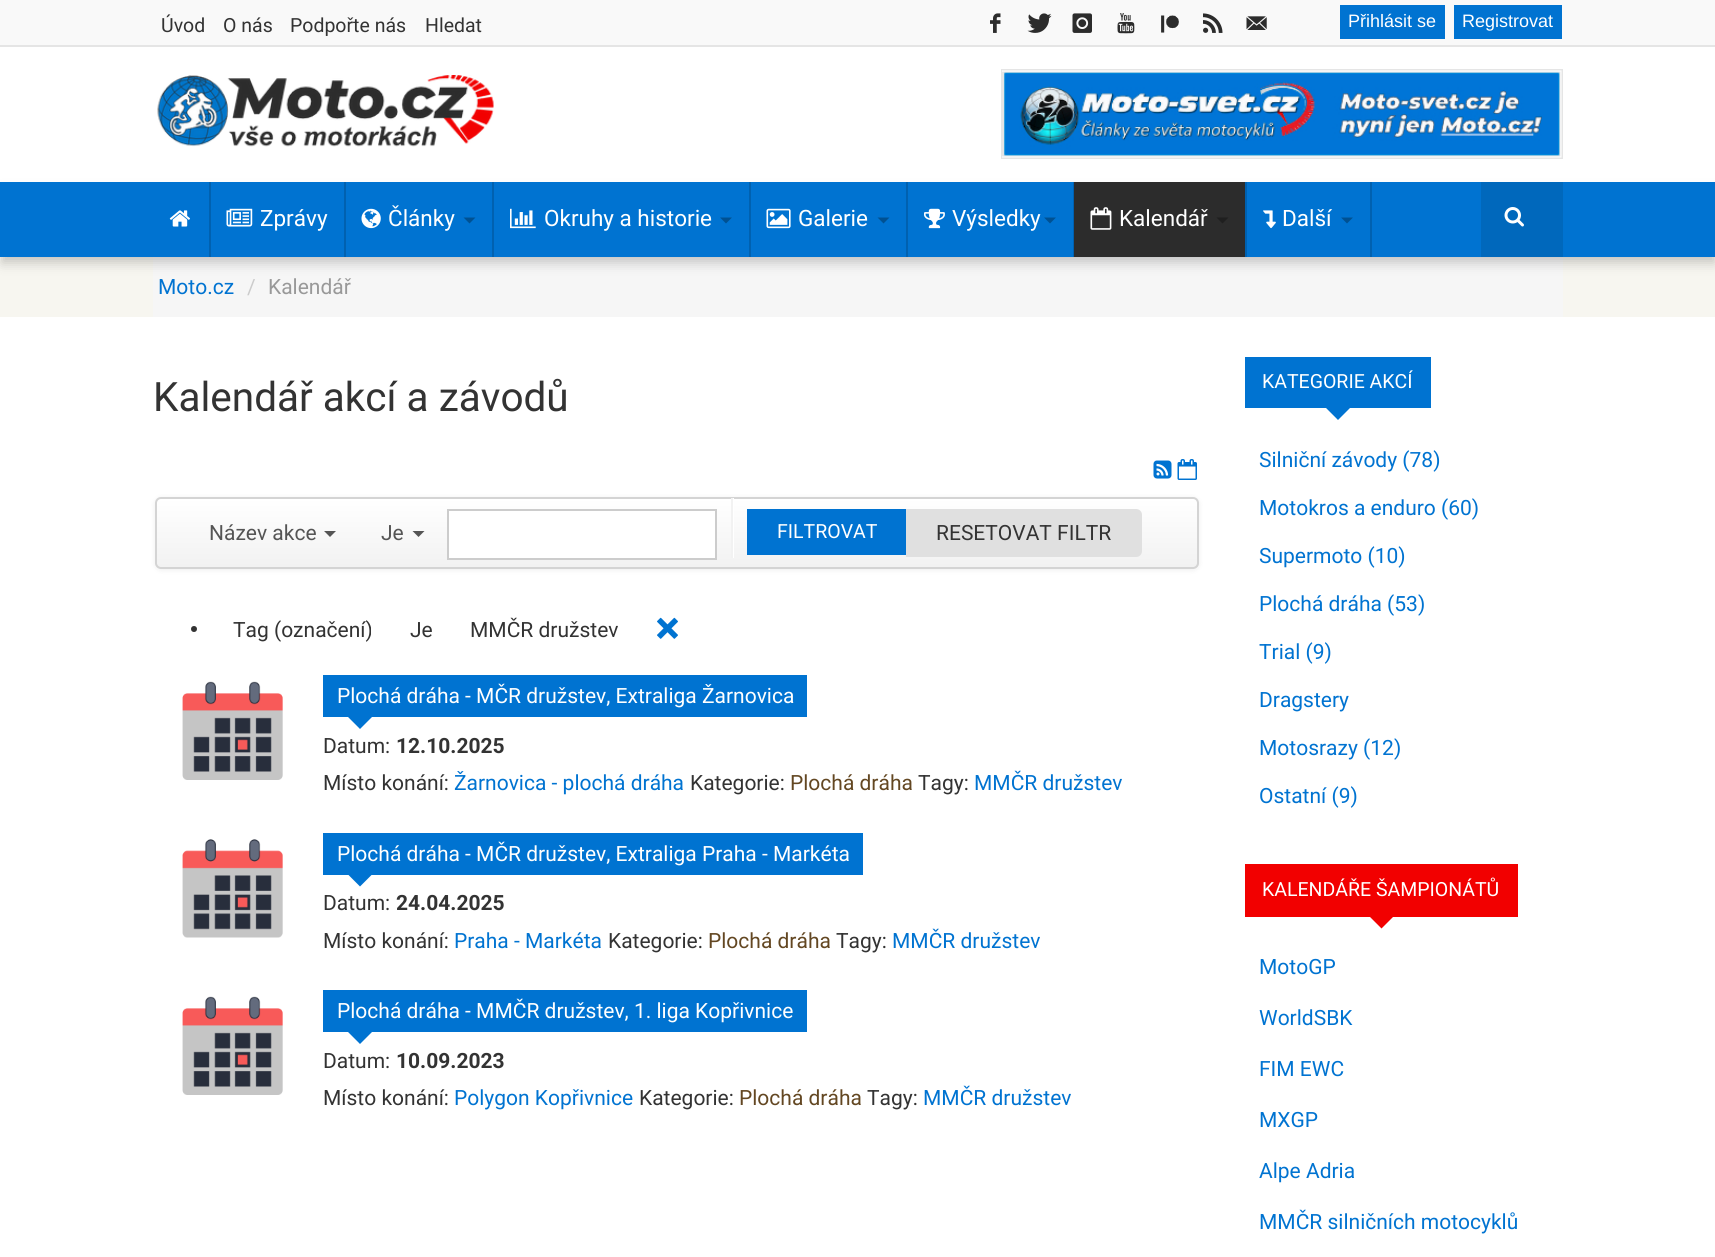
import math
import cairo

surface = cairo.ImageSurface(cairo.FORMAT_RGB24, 1715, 1257)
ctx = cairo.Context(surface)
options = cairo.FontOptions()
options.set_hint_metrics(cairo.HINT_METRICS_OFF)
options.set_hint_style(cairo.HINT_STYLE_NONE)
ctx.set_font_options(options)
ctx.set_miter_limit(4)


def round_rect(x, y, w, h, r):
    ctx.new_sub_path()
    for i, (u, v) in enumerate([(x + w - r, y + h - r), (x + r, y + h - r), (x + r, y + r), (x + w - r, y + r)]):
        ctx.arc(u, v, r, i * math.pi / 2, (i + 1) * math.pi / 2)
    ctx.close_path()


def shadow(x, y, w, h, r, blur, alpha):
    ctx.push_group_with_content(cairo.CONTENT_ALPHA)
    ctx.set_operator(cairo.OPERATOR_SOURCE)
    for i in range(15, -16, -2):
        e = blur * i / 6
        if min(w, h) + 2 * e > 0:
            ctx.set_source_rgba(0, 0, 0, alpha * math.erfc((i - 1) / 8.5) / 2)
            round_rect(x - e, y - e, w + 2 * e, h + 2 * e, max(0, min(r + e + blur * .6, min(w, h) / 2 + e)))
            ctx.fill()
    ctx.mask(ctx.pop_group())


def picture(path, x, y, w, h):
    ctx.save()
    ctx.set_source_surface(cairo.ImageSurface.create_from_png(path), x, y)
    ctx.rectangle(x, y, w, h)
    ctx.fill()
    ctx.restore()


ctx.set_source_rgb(1, 1, 1)
ctx.paint()
ctx.set_source_rgb(0.973, 0.973, 0.973)
ctx.rectangle(0, 0, 1715, 45)
ctx.fill()
ctx.set_source_rgb(0.898, 0.898, 0.898)
ctx.rectangle(0, 45, 1715, 2)
ctx.fill()
ctx.select_font_face("Roboto")
ctx.set_font_size(19.5)
ctx.set_source_rgb(0.2, 0.2, 0.2)
ctx.move_to(161, 32)
ctx.show_text("Úvod")
ctx.move_to(223, 32)
ctx.show_text("O nás")
ctx.move_to(290, 32)
ctx.show_text("Podpořte nás")
ctx.move_to(425, 32)
ctx.show_text("Hledat")
picture("img1.png", 990, 13, 11, 20)
picture("img2.png", 1027, 13, 25, 20)
picture("img3.png", 1072, 13, 20, 20)
picture("img4.png", 1117, 13, 18, 21)
picture("img5.png", 1161, 15, 18, 18)
picture("img6.png", 1203, 13, 20, 20)
picture("img7.png", 1246, 16, 21, 14)
ctx.set_source_rgb(0, 0.451, 0.82)
ctx.rectangle(1340, 5, 105, 34)
ctx.fill()
ctx.select_font_face("Liberation Sans")
ctx.set_font_size(18)
ctx.set_source_rgb(1, 1, 1)
ctx.move_to(1348, 27)
ctx.show_text("Přihlásit se")
ctx.set_source_rgb(0, 0.451, 0.82)
ctx.rectangle(1454, 5, 108, 34)
ctx.fill()
ctx.set_source_rgb(1, 1, 1)
ctx.move_to(1462, 27)
ctx.show_text("Registrovat")
picture("img8.png", 157, 75, 337, 72)
ctx.rectangle(1002, 70, 560, 88)
ctx.set_source_rgb(0.898, 0.898, 0.898)
ctx.stroke()
picture("img9.png", 1002, 70, 560, 88)
ctx.set_source_rgb(0.965, 0.961, 0.941)
ctx.rectangle(0, 257, 1715, 60)
ctx.fill()
ctx.set_source_rgb(0.961, 0.961, 0.961)
ctx.rectangle(153, 257, 1410, 60)
ctx.fill()
ctx.set_source_rgb(0, 0, 0)
shadow(2, 191, 1713, 72, 0, 6, 0.2)
ctx.set_source_rgb(0, 0.451, 0.82)
ctx.rectangle(0, 182, 1715, 75)
ctx.fill()
ctx.set_source_rgb(0, 0.38, 0.69)
ctx.rectangle(209, 182, 2, 75)
ctx.fill()
picture("img10.png", 169, 210, 21, 17)
ctx.rectangle(344, 182, 2, 75)
ctx.fill()
picture("img11.png", 226, 208, 27, 19)
ctx.select_font_face("Roboto")
ctx.set_font_size(22.5)
ctx.set_source_rgb(1, 1, 1)
ctx.move_to(260, 226)
ctx.show_text("Zprávy")
ctx.set_source_rgb(0, 0.38, 0.69)
ctx.rectangle(492, 182, 2, 75)
ctx.fill()
picture("img12.png", 361, 208, 20, 21)
ctx.set_source_rgb(1, 1, 1)
ctx.move_to(388, 226)
ctx.show_text("Články")
ctx.set_source_rgb(0, 0.318, 0.573)
ctx.new_path()
ctx.move_to(463.5, 217.5)
ctx.line_to(475.5, 217.5)
ctx.line_to(469.5, 223.5)
ctx.close_path()
ctx.fill()
ctx.set_source_rgb(0, 0.38, 0.69)
ctx.rectangle(749, 182, 2, 75)
ctx.fill()
picture("img13.png", 510, 208, 26, 21)
ctx.set_source_rgb(1, 1, 1)
ctx.move_to(544, 226)
ctx.show_text("Okruhy a historie")
ctx.set_source_rgb(0, 0.318, 0.573)
ctx.new_path()
ctx.move_to(720, 217.5)
ctx.line_to(732, 217.5)
ctx.line_to(726, 223.5)
ctx.close_path()
ctx.fill()
ctx.set_source_rgb(0, 0.38, 0.69)
ctx.rectangle(906, 182, 2, 75)
ctx.fill()
picture("img14.png", 766, 208, 25, 21)
ctx.set_source_rgb(1, 1, 1)
ctx.move_to(798, 226)
ctx.show_text("Galerie")
ctx.set_source_rgb(0, 0.318, 0.573)
ctx.new_path()
ctx.move_to(877.5, 217.5)
ctx.line_to(889.5, 217.5)
ctx.line_to(883.5, 223.5)
ctx.close_path()
ctx.fill()
ctx.set_source_rgb(0, 0.38, 0.69)
ctx.rectangle(1073, 182, 1, 75)
ctx.fill()
picture("img15.png", 924, 208, 21, 21)
ctx.set_source_rgb(1, 1, 1)
ctx.move_to(952, 226)
ctx.show_text("Výsledky")
ctx.set_source_rgb(0, 0.318, 0.573)
ctx.new_path()
ctx.move_to(1044, 217.5)
ctx.line_to(1056, 217.5)
ctx.line_to(1050, 223.5)
ctx.close_path()
ctx.fill()
ctx.set_source_rgb(0, 0.38, 0.69)
ctx.rectangle(1245, 182, 2, 75)
ctx.fill()
ctx.set_source_rgb(0.173, 0.173, 0.173)
ctx.rectangle(1074, 182, 171, 75)
ctx.fill()
picture("img16.png", 1090, 207, 22, 23)
ctx.set_source_rgb(1, 1, 1)
ctx.move_to(1119, 226)
ctx.show_text("Kalendář")
ctx.set_source_rgb(0.122, 0.122, 0.122)
ctx.new_path()
ctx.move_to(1216.5, 217.5)
ctx.line_to(1228.5, 217.5)
ctx.line_to(1222.5, 223.5)
ctx.close_path()
ctx.fill()
ctx.set_source_rgb(0, 0.38, 0.69)
ctx.rectangle(1370, 182, 2, 75)
ctx.fill()
picture("img17.png", 1263, 210, 13, 19)
ctx.set_source_rgb(1, 1, 1)
ctx.move_to(1282, 226)
ctx.show_text("Další")
ctx.set_source_rgb(0, 0.318, 0.573)
ctx.new_path()
ctx.move_to(1341, 217.5)
ctx.line_to(1353, 217.5)
ctx.line_to(1347, 223.5)
ctx.close_path()
ctx.fill()
ctx.set_source_rgb(0, 0.408, 0.737)
ctx.rectangle(1481, 182, 82, 75)
ctx.fill()
picture("img18.png", 1504, 207, 20, 20)
ctx.set_font_size(21)
ctx.set_source_rgb(0, 0.451, 0.82)
ctx.move_to(158, 294)
ctx.show_text("Moto.cz")
ctx.set_source_rgb(0.8, 0.8, 0.8)
ctx.move_to(247, 294)
ctx.show_text("/")
ctx.set_source_rgb(0.6, 0.6, 0.6)
ctx.move_to(268, 294)
ctx.show_text("Kalendář")
ctx.set_font_size(40.5)
ctx.set_source_rgb(0.2, 0.2, 0.2)
ctx.move_to(153, 411)
ctx.show_text("Kalendář akcí a závodů")
picture("img19.png", 1153, 460, 19, 19)
picture("img20.png", 1177, 459, 20, 21)
ctx.set_source_rgb(0, 0, 0)
shadow(155, 498, 1044, 72, 6, 3, 0.07)
ctx.save()
round_rect(155, 497, 1044, 72, 6)
ctx.clip()
gradient = cairo.LinearGradient(677, 498, 677, 567)
gradient.add_color_stop_rgba(0, 1, 1, 1, 1)
gradient.add_color_stop_rgba(1, 0.949, 0.949, 0.949, 1)
ctx.set_source(gradient)
ctx.rectangle(155, 498, 1044, 69)
ctx.fill()
ctx.restore()
round_rect(156, 498, 1042, 70, 5)
ctx.set_source_rgb(0.831, 0.831, 0.831)
ctx.stroke()
ctx.set_font_size(21)
ctx.set_source_rgb(0.333, 0.333, 0.333)
ctx.move_to(209, 540)
ctx.show_text("Název akce")
ctx.new_path()
ctx.move_to(324, 531)
ctx.line_to(336, 531)
ctx.line_to(330, 537)
ctx.close_path()
ctx.fill()
ctx.move_to(381, 540)
ctx.show_text("Je")
ctx.new_path()
ctx.move_to(412.5, 531)
ctx.line_to(424.5, 531)
ctx.line_to(418.5, 537)
ctx.close_path()
ctx.fill()
ctx.set_source_rgb(1, 1, 1)
ctx.rectangle(448, 510, 268, 49)
ctx.fill_preserve()
ctx.set_source_rgb(0.8, 0.8, 0.8)
ctx.stroke()
ctx.set_source_rgb(1, 1, 1)
ctx.rectangle(733, 498, 1, 60)
ctx.fill()
ctx.set_source_rgb(0.949, 0.949, 0.949)
ctx.rectangle(731, 498, 2, 60)
ctx.fill()
ctx.set_source_rgb(0, 0.451, 0.82)
ctx.rectangle(747, 509, 159, 46)
ctx.fill()
ctx.set_font_size(19.5)
ctx.set_source_rgb(1, 1, 1)
ctx.move_to(777, 538)
ctx.show_text("FILTROVAT")
ctx.set_source_rgb(0.878, 0.878, 0.878)
ctx.new_path()
ctx.move_to(906, 509)
ctx.line_to(1136, 509)
ctx.curve_to(1139.5, 509, 1142, 511.5, 1142, 515)
ctx.line_to(1142, 551)
ctx.curve_to(1142, 554.5, 1139.5, 557, 1136, 557)
ctx.line_to(906, 557)
ctx.close_path()
ctx.fill()
ctx.set_font_size(21)
ctx.set_source_rgb(0.2, 0.2, 0.2)
ctx.move_to(936, 540)
ctx.show_text("RESETOVAT FILTR")
ctx.new_path()
ctx.arc(194, 629, 3, 0, 2 * math.pi)
ctx.fill()
ctx.move_to(233, 637)
ctx.show_text("Tag (označení)")
ctx.move_to(410, 637)
ctx.show_text("Je")
ctx.move_to(470, 637)
ctx.show_text("MMČR družstev")
picture("img21.png", 657, 617, 21, 22)
picture("img22.png", 182, 681, 101, 99)
ctx.set_source_rgb(0, 0.451, 0.82)
ctx.rectangle(323, 675, 484, 42)
ctx.fill()
ctx.set_source_rgb(1, 1, 1)
ctx.move_to(337, 703)
ctx.show_text("Plochá dráha - MČR družstev, Extraliga Žarnovica")
ctx.set_source_rgb(0, 0.451, 0.82)
ctx.new_path()
ctx.move_to(345, 714)
ctx.line_to(375, 714)
ctx.line_to(360, 729)
ctx.close_path()
ctx.fill()
ctx.set_source_rgb(0.2, 0.2, 0.2)
ctx.move_to(323, 753)
ctx.show_text("Datum:")
ctx.select_font_face("Roboto", cairo.FONT_SLANT_NORMAL, cairo.FONT_WEIGHT_BOLD)
ctx.move_to(396, 753)
ctx.show_text("12.10.2025")
ctx.select_font_face("Roboto")
ctx.move_to(323, 790)
ctx.show_text("Místo konání:")
ctx.set_source_rgb(0, 0.451, 0.82)
ctx.move_to(454, 790)
ctx.show_text("Žarnovica - plochá dráha")
ctx.set_source_rgb(0.2, 0.2, 0.2)
ctx.move_to(690, 790)
ctx.show_text("Kategorie:")
ctx.set_source_rgb(0.388, 0.278, 0.133)
ctx.move_to(790, 790)
ctx.show_text("Plochá dráha")
ctx.set_source_rgb(0.2, 0.2, 0.2)
ctx.move_to(918, 790)
ctx.show_text("Tagy:")
ctx.set_source_rgb(0, 0.451, 0.82)
ctx.move_to(974, 790)
ctx.show_text("MMČR družstev")
picture("img23.png", 182, 839, 101, 99)
ctx.rectangle(323, 833, 540, 42)
ctx.fill()
ctx.set_source_rgb(1, 1, 1)
ctx.move_to(337, 861)
ctx.show_text("Plochá dráha - MČR družstev, Extraliga Praha - Markéta")
ctx.set_source_rgb(0, 0.451, 0.82)
ctx.new_path()
ctx.move_to(345, 871.5)
ctx.line_to(375, 871.5)
ctx.line_to(360, 886.5)
ctx.close_path()
ctx.fill()
ctx.set_source_rgb(0.2, 0.2, 0.2)
ctx.move_to(323, 910)
ctx.show_text("Datum:")
ctx.select_font_face("Roboto", cairo.FONT_SLANT_NORMAL, cairo.FONT_WEIGHT_BOLD)
ctx.move_to(396, 910)
ctx.show_text("24.04.2025")
ctx.select_font_face("Roboto")
ctx.move_to(323, 948)
ctx.show_text("Místo konání:")
ctx.set_source_rgb(0, 0.451, 0.82)
ctx.move_to(454, 948)
ctx.show_text("Praha - Markéta")
ctx.set_source_rgb(0.2, 0.2, 0.2)
ctx.move_to(608, 948)
ctx.show_text("Kategorie:")
ctx.set_source_rgb(0.388, 0.278, 0.133)
ctx.move_to(708, 948)
ctx.show_text("Plochá dráha")
ctx.set_source_rgb(0.2, 0.2, 0.2)
ctx.move_to(836, 948)
ctx.show_text("Tagy:")
ctx.set_source_rgb(0, 0.451, 0.82)
ctx.move_to(892, 948)
ctx.show_text("MMČR družstev")
picture("img22.png", 182, 996, 101, 99)
ctx.rectangle(323, 990, 484, 42)
ctx.fill()
ctx.set_source_rgb(1, 1, 1)
ctx.move_to(337, 1018)
ctx.show_text("Plochá dráha - MMČR družstev, 1. liga Kopřivnice")
ctx.set_source_rgb(0, 0.451, 0.82)
ctx.new_path()
ctx.move_to(345, 1029)
ctx.line_to(375, 1029)
ctx.line_to(360, 1044)
ctx.close_path()
ctx.fill()
ctx.set_source_rgb(0.2, 0.2, 0.2)
ctx.move_to(323, 1068)
ctx.show_text("Datum:")
ctx.select_font_face("Roboto", cairo.FONT_SLANT_NORMAL, cairo.FONT_WEIGHT_BOLD)
ctx.move_to(396, 1068)
ctx.show_text("10.09.2023")
ctx.select_font_face("Roboto")
ctx.move_to(323, 1105)
ctx.show_text("Místo konání:")
ctx.set_source_rgb(0, 0.451, 0.82)
ctx.move_to(454, 1105)
ctx.show_text("Polygon Kopřivnice")
ctx.set_source_rgb(0.2, 0.2, 0.2)
ctx.move_to(639, 1105)
ctx.show_text("Kategorie:")
ctx.set_source_rgb(0.388, 0.278, 0.133)
ctx.move_to(739, 1105)
ctx.show_text("Plochá dráha")
ctx.set_source_rgb(0.2, 0.2, 0.2)
ctx.move_to(867, 1105)
ctx.show_text("Tagy:")
ctx.set_source_rgb(0, 0.451, 0.82)
ctx.move_to(923, 1105)
ctx.show_text("MMČR družstev")
ctx.rectangle(1245, 357, 186, 51)
ctx.fill()
ctx.set_font_size(19.5)
ctx.set_source_rgb(1, 1, 1)
ctx.move_to(1262, 388)
ctx.show_text("KATEGORIE AKCÍ")
ctx.set_source_rgb(0, 0.451, 0.82)
ctx.new_path()
ctx.move_to(1323, 405)
ctx.line_to(1353, 405)
ctx.line_to(1338, 420)
ctx.close_path()
ctx.fill()
ctx.set_font_size(21)
ctx.move_to(1259, 467)
ctx.show_text("Silniční závody (78)")
ctx.move_to(1259, 515)
ctx.show_text("Motokros a enduro (60)")
ctx.move_to(1259, 563)
ctx.show_text("Supermoto (10)")
ctx.move_to(1259, 611)
ctx.show_text("Plochá dráha (53)")
ctx.move_to(1259, 659)
ctx.show_text("Trial (9)")
ctx.move_to(1259, 707)
ctx.show_text("Dragstery")
ctx.move_to(1259, 755)
ctx.show_text("Motosrazy (12)")
ctx.move_to(1259, 803)
ctx.show_text("Ostatní (9)")
ctx.set_source_rgb(0.949, 0, 0)
ctx.rectangle(1245, 864, 273, 53)
ctx.fill()
ctx.set_font_size(19.5)
ctx.set_source_rgb(1, 1, 1)
ctx.move_to(1262, 896)
ctx.show_text("KALENDÁŘE ŠAMPIONÁTŮ")
ctx.set_source_rgb(0.949, 0, 0)
ctx.new_path()
ctx.move_to(1366.5, 913.5)
ctx.line_to(1396.5, 913.5)
ctx.line_to(1381.5, 928.5)
ctx.close_path()
ctx.fill()
ctx.set_font_size(21)
ctx.set_source_rgb(0, 0.451, 0.82)
ctx.move_to(1259, 974)
ctx.show_text("MotoGP")
ctx.move_to(1259, 1025)
ctx.show_text("WorldSBK")
ctx.move_to(1259, 1076)
ctx.show_text("FIM EWC")
ctx.move_to(1259, 1127)
ctx.show_text("MXGP")
ctx.move_to(1259, 1178)
ctx.show_text("Alpe Adria")
ctx.move_to(1259, 1229)
ctx.show_text("MMČR silničních motocyklů")
surface.write_to_png("page.png")
